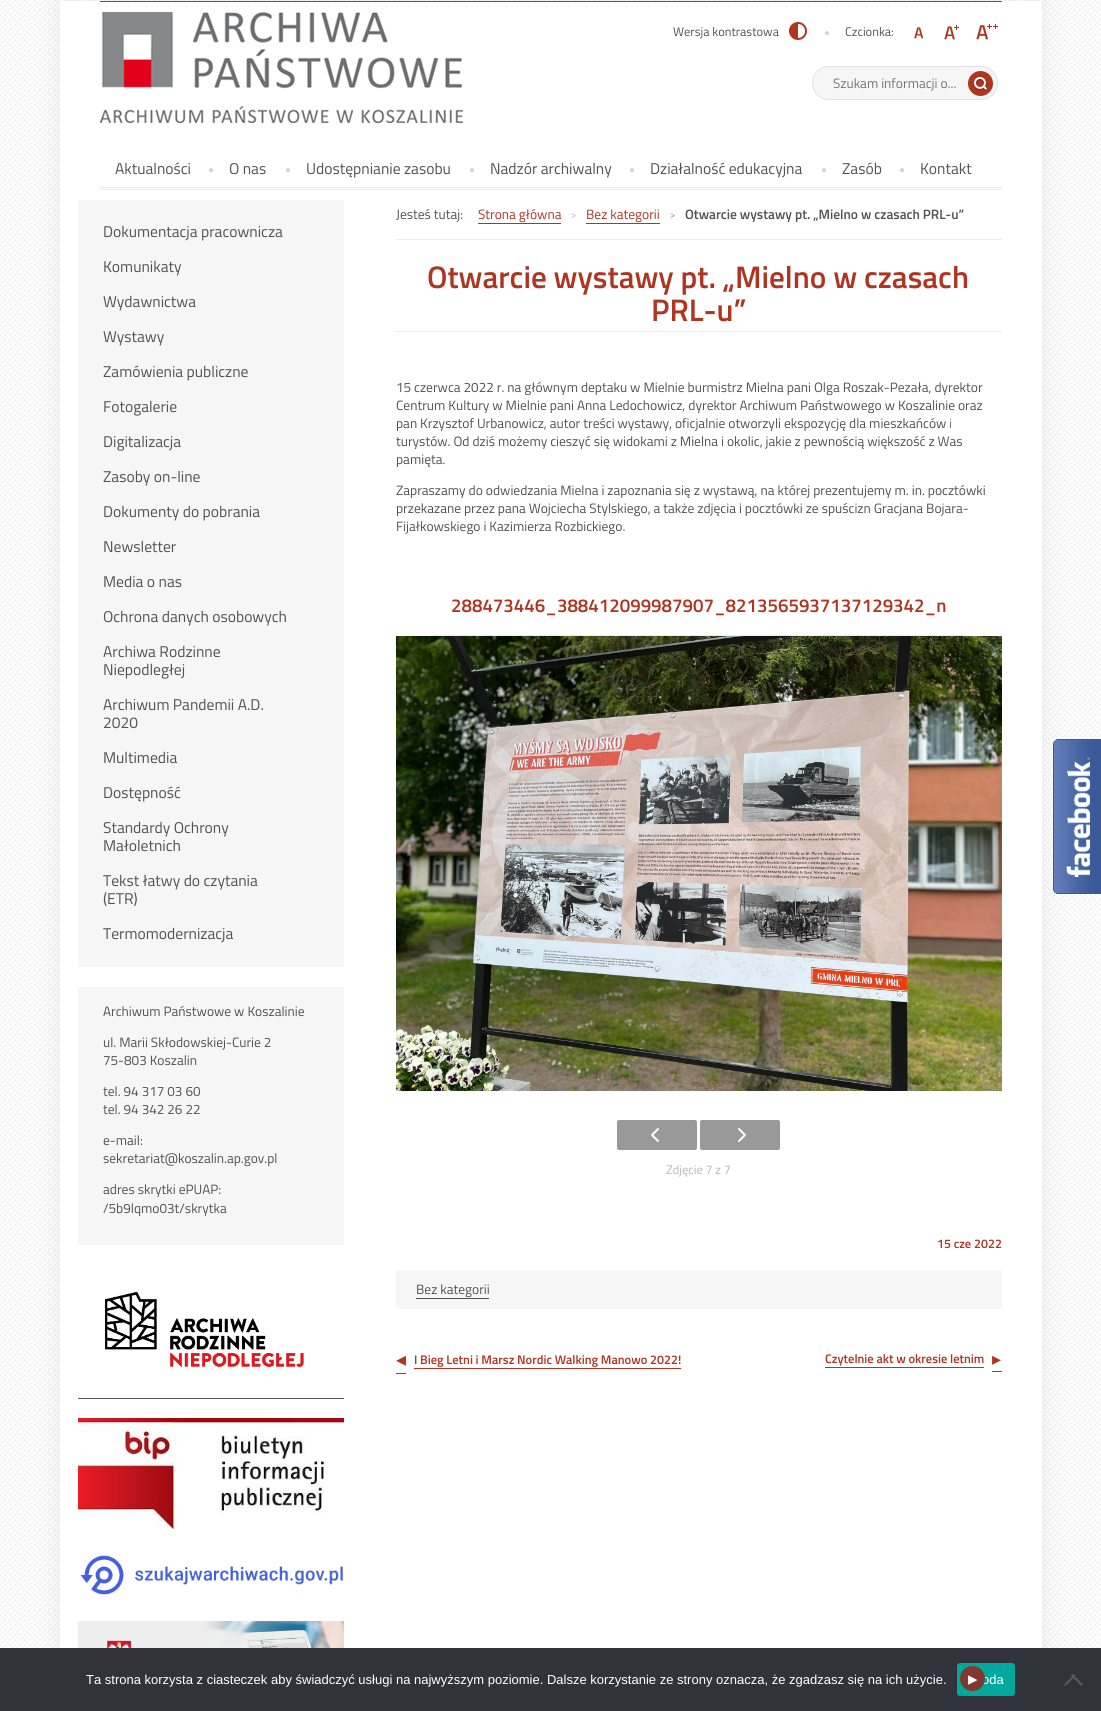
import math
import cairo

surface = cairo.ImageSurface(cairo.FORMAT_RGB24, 1101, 1711)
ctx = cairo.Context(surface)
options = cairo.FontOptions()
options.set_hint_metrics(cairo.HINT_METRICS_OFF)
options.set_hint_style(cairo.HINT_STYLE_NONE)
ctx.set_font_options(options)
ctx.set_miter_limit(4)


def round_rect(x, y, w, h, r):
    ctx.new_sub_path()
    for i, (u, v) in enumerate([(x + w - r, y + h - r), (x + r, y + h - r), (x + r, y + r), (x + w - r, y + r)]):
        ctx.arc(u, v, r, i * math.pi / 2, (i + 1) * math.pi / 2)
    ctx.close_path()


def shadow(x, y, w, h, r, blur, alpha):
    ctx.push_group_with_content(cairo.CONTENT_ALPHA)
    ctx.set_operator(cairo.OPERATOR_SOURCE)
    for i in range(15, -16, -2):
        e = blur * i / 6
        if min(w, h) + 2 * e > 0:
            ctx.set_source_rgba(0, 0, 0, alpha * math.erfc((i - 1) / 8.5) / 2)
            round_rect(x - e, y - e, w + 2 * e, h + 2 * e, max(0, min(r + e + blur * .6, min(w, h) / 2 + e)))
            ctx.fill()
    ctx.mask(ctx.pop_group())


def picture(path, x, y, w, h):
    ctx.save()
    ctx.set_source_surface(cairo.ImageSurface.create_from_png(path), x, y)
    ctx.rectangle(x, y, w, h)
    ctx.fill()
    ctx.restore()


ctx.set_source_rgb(1, 1, 1)
ctx.paint()
picture("img1.png", 0, 0, 1101, 1648)
ctx.set_source_rgb(0, 0, 0)
shadow(60, 1, 982, 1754, 0, 14.5, 0.09)
ctx.set_source_rgb(1, 1, 1)
ctx.rectangle(60, 1, 982, 1647)
ctx.fill()
ctx.set_source_rgb(0.686, 0.208, 0.129)
ctx.rectangle(100, 1, 902, 1)
ctx.fill()
ctx.set_source_rgb(0.918, 0.918, 0.918)
ctx.rectangle(100, 187, 902, 1)
ctx.fill()
picture("img2.png", 100, 12, 363, 111)
ctx.select_font_face("Titillium Web")
ctx.set_font_size(12)
ctx.set_source_rgb(0.322, 0.322, 0.322)
ctx.move_to(673, 36)
ctx.show_text("Wersja kontrastowa")
picture("img3.png", 789, 22, 18, 18)
ctx.select_font_face("Liberation Serif")
ctx.set_font_size(10)
ctx.set_source_rgb(0.831, 0.831, 0.831)
ctx.move_to(824, 36)
ctx.show_text("●")
ctx.select_font_face("Titillium Web")
ctx.set_font_size(12)
ctx.set_source_rgb(0.322, 0.322, 0.322)
ctx.move_to(845, 36)
ctx.show_text("Czcionka:")
picture("img4.png", 914, 27, 9, 12)
picture("img5.png", 944, 25, 15, 15)
picture("img6.png", 976, 24, 22, 16)
ctx.set_source_rgb(0.961, 0.961, 0.961)
round_rect(812.5, 66.5, 185, 33, 16.5)
ctx.fill_preserve()
ctx.set_source_rgb(0.882, 0.882, 0.882)
ctx.set_line_width(1)
ctx.stroke()
ctx.set_font_size(13)
ctx.set_source_rgb(0.459, 0.459, 0.459)
ctx.move_to(833, 88)
ctx.show_text("Szukam informacji o...")
picture("img7.png", 968, 71, 25, 25)
ctx.set_font_size(15)
ctx.set_source_rgb(0.322, 0.322, 0.322)
ctx.move_to(115, 174)
ctx.show_text("Aktualności")
ctx.select_font_face("Liberation Serif")
ctx.set_font_size(10)
ctx.set_source_rgb(0.831, 0.831, 0.831)
ctx.move_to(208, 173)
ctx.show_text("●")
ctx.select_font_face("Titillium Web")
ctx.set_font_size(15)
ctx.set_source_rgb(0.322, 0.322, 0.322)
ctx.move_to(229, 174)
ctx.show_text("O nas")
ctx.select_font_face("Liberation Serif")
ctx.set_font_size(10)
ctx.set_source_rgb(0.831, 0.831, 0.831)
ctx.move_to(285, 173)
ctx.show_text("●")
ctx.select_font_face("Titillium Web")
ctx.set_font_size(15)
ctx.set_source_rgb(0.322, 0.322, 0.322)
ctx.move_to(306, 174)
ctx.show_text("Udostępnianie zasobu")
ctx.select_font_face("Liberation Serif")
ctx.set_font_size(10)
ctx.set_source_rgb(0.831, 0.831, 0.831)
ctx.move_to(469, 173)
ctx.show_text("●")
ctx.select_font_face("Titillium Web")
ctx.set_font_size(15)
ctx.set_source_rgb(0.322, 0.322, 0.322)
ctx.move_to(490, 174)
ctx.show_text("Nadzór archiwalny")
ctx.select_font_face("Liberation Serif")
ctx.set_font_size(10)
ctx.set_source_rgb(0.831, 0.831, 0.831)
ctx.move_to(629, 173)
ctx.show_text("●")
ctx.select_font_face("Titillium Web")
ctx.set_font_size(15)
ctx.set_source_rgb(0.322, 0.322, 0.322)
ctx.move_to(650, 174)
ctx.show_text("Działalność edukacyjna")
ctx.select_font_face("Liberation Serif")
ctx.set_font_size(10)
ctx.set_source_rgb(0.831, 0.831, 0.831)
ctx.move_to(821, 173)
ctx.show_text("●")
ctx.select_font_face("Titillium Web")
ctx.set_font_size(15)
ctx.set_source_rgb(0.322, 0.322, 0.322)
ctx.move_to(842, 174)
ctx.show_text("Zasób")
ctx.select_font_face("Liberation Serif")
ctx.set_font_size(10)
ctx.set_source_rgb(0.831, 0.831, 0.831)
ctx.move_to(899, 173)
ctx.show_text("●")
ctx.select_font_face("Titillium Web")
ctx.set_font_size(15)
ctx.set_source_rgb(0.322, 0.322, 0.322)
ctx.move_to(920, 174)
ctx.show_text("Kontakt")
ctx.set_source_rgb(0.918, 0.918, 0.918)
ctx.rectangle(100, 189, 902, 1)
ctx.fill()
ctx.set_source_rgb(0.961, 0.961, 0.961)
ctx.rectangle(78, 200, 266, 767)
ctx.fill()
ctx.set_source_rgb(0.322, 0.322, 0.322)
ctx.move_to(103, 237)
ctx.show_text("Dokumentacja pracownicza")
ctx.move_to(103, 272)
ctx.show_text("Komunikaty")
ctx.move_to(103, 307)
ctx.show_text("Wydawnictwa")
ctx.move_to(103, 342)
ctx.show_text("Wystawy")
ctx.move_to(103, 377)
ctx.show_text("Zamówienia publiczne")
ctx.move_to(103, 412)
ctx.show_text("Fotogalerie")
ctx.move_to(103, 447)
ctx.show_text("Digitalizacja")
ctx.move_to(103, 482)
ctx.show_text("Zasoby on-line")
ctx.move_to(103, 517)
ctx.show_text("Dokumenty do pobrania")
ctx.move_to(103, 552)
ctx.show_text("Newsletter")
ctx.move_to(103, 587)
ctx.show_text("Media o nas")
ctx.move_to(103, 622)
ctx.show_text("Ochrona danych osobowych")
ctx.move_to(103, 657)
ctx.show_text("Archiwa Rodzinne")
ctx.move_to(103, 675)
ctx.show_text("Niepodległej")
ctx.move_to(103, 710)
ctx.show_text("Archiwum Pandemii A.D.")
ctx.move_to(103, 728)
ctx.show_text("2020")
ctx.move_to(103, 763)
ctx.show_text("Multimedia")
ctx.move_to(103, 798)
ctx.show_text("Dostępność")
ctx.move_to(103, 833)
ctx.show_text("Standardy Ochrony")
ctx.move_to(103, 851)
ctx.show_text("Małoletnich")
ctx.move_to(103, 886)
ctx.show_text("Tekst łatwy do czytania")
ctx.move_to(103, 904)
ctx.show_text("(ETR)")
ctx.move_to(103, 939)
ctx.show_text("Termomodernizacja")
ctx.set_source_rgb(0.961, 0.961, 0.961)
ctx.rectangle(78, 987, 266, 258)
ctx.fill()
ctx.set_font_size(13)
ctx.set_source_rgb(0.322, 0.322, 0.322)
ctx.move_to(103, 1016)
ctx.show_text("Archiwum Państwowe w Koszalinie")
ctx.move_to(103, 1047)
ctx.show_text("ul. Marii Skłodowskiej-Curie 2")
ctx.move_to(103, 1065)
ctx.show_text("75-803 Koszalin")
ctx.move_to(103, 1096)
ctx.show_text("tel. 94 317 03 60")
ctx.move_to(103, 1114)
ctx.show_text("tel. 94 342 26 22")
ctx.move_to(103, 1145)
ctx.show_text("e-mail:")
ctx.move_to(103, 1163)
ctx.show_text("sekretariat@koszalin.ap.gov.pl")
ctx.move_to(103, 1194)
ctx.show_text("adres skrytki ePUAP:")
ctx.move_to(103, 1213)
ctx.show_text("/5b9lqmo03t/skrytka")
picture("img8.png", 105, 1291, 199, 77)
ctx.rectangle(78, 1398, 266, 1)
ctx.fill()
picture("img9.png", 78, 1418, 266, 111)
picture("img10.png", 80, 1555, 264, 40)
picture("img11.png", 78, 1621, 266, 27)
ctx.set_source_rgb(0.918, 0.918, 0.918)
ctx.rectangle(396, 239, 606, 1)
ctx.fill()
ctx.set_source_rgb(0.322, 0.322, 0.322)
ctx.move_to(396, 219)
ctx.show_text("Jesteś tutaj:")
ctx.set_source_rgb(0.686, 0.208, 0.129)
ctx.move_to(478, 219)
ctx.show_text("Strona główna")
ctx.rectangle(478, 223, 83, 1)
ctx.fill()
ctx.set_font_size(9)
ctx.set_source_rgb(0.667, 0.667, 0.667)
ctx.move_to(571, 218)
ctx.show_text(">")
ctx.set_font_size(13)
ctx.set_source_rgb(0.686, 0.208, 0.129)
ctx.move_to(586, 219)
ctx.show_text("Bez kategorii")
ctx.rectangle(586, 223, 74, 1)
ctx.fill()
ctx.select_font_face("Titillium Web SemiBold")
ctx.set_font_size(9)
ctx.set_source_rgb(0.667, 0.667, 0.667)
ctx.move_to(670, 218)
ctx.show_text(">")
ctx.set_font_size(13)
ctx.set_source_rgb(0.322, 0.322, 0.322)
ctx.move_to(685, 219)
ctx.show_text("Otwarcie wystawy pt. „Mielno w czasach PRL-u”")
ctx.set_source_rgb(0.918, 0.918, 0.918)
ctx.rectangle(396, 331, 606, 1)
ctx.fill()
ctx.set_font_size(30)
ctx.set_source_rgb(0.686, 0.208, 0.129)
ctx.move_to(427, 288)
ctx.show_text("Otwarcie wystawy pt. „Mielno w czasach")
ctx.move_to(651, 321)
ctx.show_text("PRL-u”")
ctx.select_font_face("Titillium Web")
ctx.set_font_size(13)
ctx.set_source_rgb(0.322, 0.322, 0.322)
ctx.move_to(396, 392)
ctx.show_text("15 czerwca 2022 r. na głównym deptaku w Mielnie burmistrz Mielna pani Olga Roszak-Pezała, dyrektor")
ctx.move_to(396, 410)
ctx.show_text("Centrum Kultury w Mielnie pani Anna Ledochowicz, dyrektor Archiwum Państwowego w Koszalinie oraz")
ctx.move_to(396, 428)
ctx.show_text("pan Krzysztof Urbanowicz, autor treści wystawy, oficjalnie otworzyli ekspozycję dla mieszkańców i")
ctx.move_to(396, 446)
ctx.show_text("turystów. Od dziś możemy cieszyć się widokami z Mielna i okolic, jakie z pewnością większość z Was")
ctx.move_to(396, 464)
ctx.show_text("pamięta.")
ctx.move_to(396, 495)
ctx.show_text("Zapraszamy do odwiedzania Mielna i zapoznania się z wystawą, na której prezentujemy m. in. pocztówki")
ctx.move_to(396, 513)
ctx.show_text("przekazane przez pana Wojciecha Stylskiego, a także zdjęcia i pocztówki ze spuścizn Gracjana Bojara-")
ctx.move_to(396, 531)
ctx.show_text("Fijałkowskiego i Kazimierza Rozbickiego.")
ctx.set_source_rgb(0.918, 0.918, 0.918)
ctx.rectangle(431, 635, 535, 1)
ctx.fill()
ctx.select_font_face("Titillium Web SemiBold")
ctx.set_font_size(18)
ctx.set_source_rgb(0.686, 0.208, 0.129)
ctx.move_to(451, 612)
ctx.show_text("288473446_388412099987907_8213565937137129342_n")
picture("img12.png", 396, 636, 606, 455)
ctx.set_source_rgb(0.6, 0.6, 0.6)
round_rect(617, 1120, 80, 30, 2)
ctx.fill()
picture("img13.png", 651, 1128, 8, 14)
round_rect(700, 1120, 80, 30, 2)
ctx.fill()
picture("img14.png", 738, 1128, 8, 14)
ctx.select_font_face("Titillium Web")
ctx.set_font_size(12)
ctx.set_source_rgb(0.714, 0.714, 0.714)
ctx.move_to(666, 1174)
ctx.show_text("Zdjęcie 7 z 7")
ctx.select_font_face("Titillium Web SemiBold")
ctx.set_source_rgb(0.686, 0.208, 0.129)
ctx.move_to(937, 1248)
ctx.show_text("15 cze 2022")
ctx.set_source_rgb(0.961, 0.961, 0.961)
ctx.rectangle(396, 1270, 606, 39)
ctx.fill()
ctx.select_font_face("Titillium Web")
ctx.set_font_size(13)
ctx.set_source_rgb(0.322, 0.322, 0.322)
ctx.move_to(416, 1294)
ctx.show_text("Bez kategorii")
ctx.rectangle(416, 1298, 73, 1)
ctx.fill()
ctx.select_font_face("DejaVu Sans")
ctx.set_font_size(20)
ctx.set_source_rgb(0.686, 0.208, 0.129)
ctx.move_to(396, 1366)
ctx.show_text("◂")
ctx.rectangle(396, 1373, 10, 1)
ctx.fill()
ctx.select_font_face("Titillium Web SemiBold")
ctx.set_font_size(12)
ctx.move_to(414, 1364)
ctx.show_text("I Bieg Letni i Marsz Nordic Walking Manowo 2022!")
ctx.rectangle(414, 1368, 267, 1)
ctx.fill()
ctx.move_to(825, 1363)
ctx.show_text("Czytelnie akt w okresie letnim")
ctx.rectangle(825, 1367, 159, 1)
ctx.fill()
ctx.select_font_face("DejaVu Sans")
ctx.set_font_size(18)
ctx.move_to(992, 1365)
ctx.show_text("▸")
ctx.rectangle(992, 1371, 10, 1)
ctx.fill()
picture("img15.png", 1053, 739, 48, 155)
ctx.set_source_rgb(0.196, 0.196, 0.227)
ctx.rectangle(0, 1648, 1101, 63)
ctx.fill()
ctx.select_font_face("Liberation Sans")
ctx.set_font_size(13)
ctx.set_source_rgb(1, 1, 1)
ctx.move_to(86, 1684)
ctx.show_text("Ta strona korzysta z ciasteczek aby świadczyć usługi na najwyższym poziomie. Dalsze korzystanie ze strony oznacza, że zgadzasz się na ich użycie.")
ctx.set_source_rgb(0, 0.663, 0.616)
round_rect(957, 1663, 58, 33, 3)
ctx.fill()
ctx.set_source_rgb(1, 1, 1)
ctx.move_to(982, 1684)
ctx.show_text("oda")
ctx.set_source_rgb(0.518, 0.216, 0.176)
ctx.new_path()
ctx.arc(972.5, 1678.5, 12.5, 0, 2 * math.pi)
ctx.fill()
ctx.select_font_face("DejaVu Sans")
ctx.set_font_size(19)
ctx.set_source_rgb(1, 1, 1)
ctx.move_to(968, 1685)
ctx.show_text("▸")
ctx.set_source_rgb(0.349, 0.349, 0.365)
ctx.new_path()
ctx.move_to(1075.5, 1674.5)
ctx.curve_to(1075.5, 1675, 1075.5, 1675.5, 1075.5, 1676)
ctx.line_to(1066, 1685.5)
ctx.curve_to(1065.5, 1685.5, 1065, 1685.5, 1064.5, 1685.5)
ctx.curve_to(1064.5, 1685, 1064.5, 1684.5, 1064.5, 1684)
ctx.line_to(1074, 1674.5)
ctx.curve_to(1074.5, 1674.5, 1075, 1674.5, 1075.5, 1674.5)
ctx.close_path()
ctx.fill()
ctx.new_path()
ctx.move_to(1071, 1675.5)
ctx.line_to(1072.5, 1674)
ctx.line_to(1083, 1684.5)
ctx.line_to(1081.5, 1686)
ctx.close_path()
ctx.fill()
surface.write_to_png("page.png")
